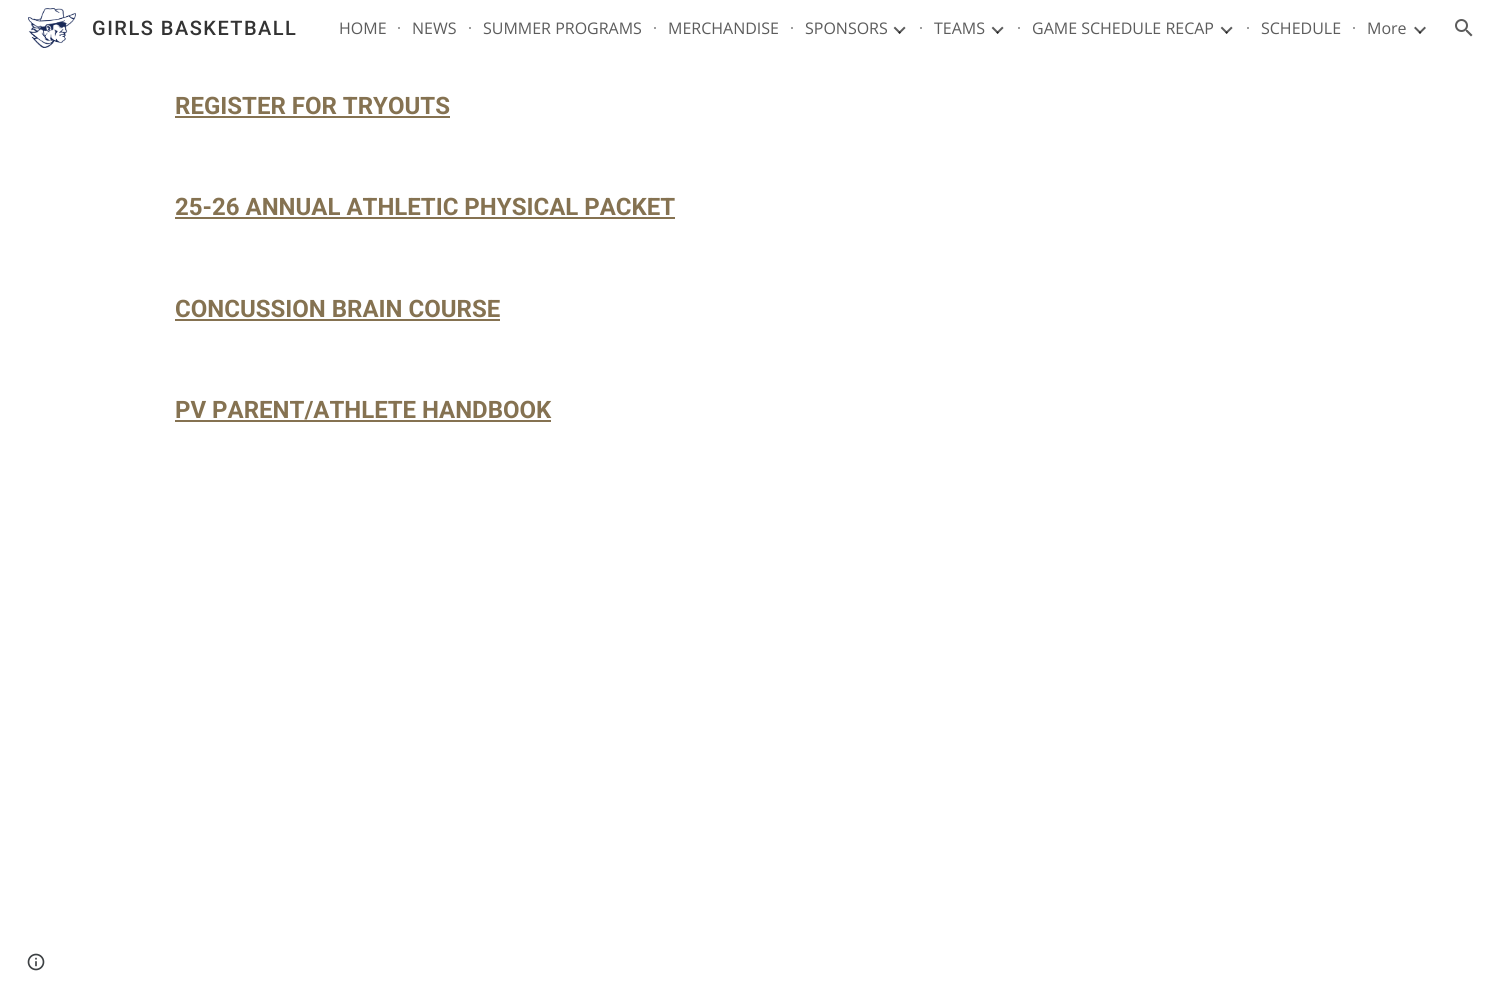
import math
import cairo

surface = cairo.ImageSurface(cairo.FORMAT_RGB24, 1488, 996)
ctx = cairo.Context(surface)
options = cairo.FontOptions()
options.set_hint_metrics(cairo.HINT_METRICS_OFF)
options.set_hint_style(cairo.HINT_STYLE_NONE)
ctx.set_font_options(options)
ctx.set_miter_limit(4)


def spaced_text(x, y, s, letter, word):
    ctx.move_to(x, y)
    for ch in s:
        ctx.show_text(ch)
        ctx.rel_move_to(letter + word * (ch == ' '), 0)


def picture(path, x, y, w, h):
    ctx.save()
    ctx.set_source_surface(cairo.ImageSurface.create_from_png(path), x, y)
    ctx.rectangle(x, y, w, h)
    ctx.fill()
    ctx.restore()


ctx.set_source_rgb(1, 1, 1)
ctx.paint()
picture("img1.png", 28, 8, 48, 40)
ctx.select_font_face("Roboto Medium")
ctx.set_font_size(20)
ctx.set_source_rgb(0.2, 0.2, 0.2)
spaced_text(92, 35, "GIRLS BASKETBALL", 1.5, 0)
ctx.select_font_face("Open Sans")
ctx.set_font_size(16)
ctx.set_source_rgb(0.361, 0.361, 0.361)
ctx.move_to(339, 34)
ctx.show_text("HOME")
ctx.set_source_rgb(0.62, 0.62, 0.62)
ctx.rectangle(398, 27, 2, 2)
ctx.fill()
ctx.set_source_rgb(0.361, 0.361, 0.361)
ctx.move_to(412, 34)
ctx.show_text("NEWS")
ctx.set_source_rgb(0.62, 0.62, 0.62)
ctx.rectangle(469, 27, 2, 2)
ctx.fill()
ctx.set_source_rgb(0.361, 0.361, 0.361)
ctx.move_to(483, 34)
ctx.show_text("SUMMER PROGRAMS")
ctx.set_source_rgb(0.62, 0.62, 0.62)
ctx.rectangle(654, 27, 2, 2)
ctx.fill()
ctx.set_source_rgb(0.361, 0.361, 0.361)
ctx.move_to(668, 34)
ctx.show_text("MERCHANDISE")
ctx.set_source_rgb(0.62, 0.62, 0.62)
ctx.rectangle(791, 27, 2, 2)
ctx.fill()
ctx.set_source_rgb(0.361, 0.361, 0.361)
ctx.move_to(805, 34)
ctx.show_text("SPONSORS")
picture("img2.png", 893, 26, 13, 8)
ctx.set_source_rgb(0.62, 0.62, 0.62)
ctx.rectangle(920, 27, 2, 2)
ctx.fill()
ctx.set_source_rgb(0.361, 0.361, 0.361)
ctx.move_to(934, 34)
ctx.show_text("TEAMS")
picture("img3.png", 991, 26, 13, 8)
ctx.set_source_rgb(0.62, 0.62, 0.62)
ctx.rectangle(1018, 27, 2, 2)
ctx.fill()
ctx.set_source_rgb(0.361, 0.361, 0.361)
ctx.move_to(1032, 34)
ctx.show_text("GAME SCHEDULE RECAP")
picture("img4.png", 1220, 26, 13, 8)
ctx.set_source_rgb(0.62, 0.62, 0.62)
ctx.rectangle(1247, 27, 2, 2)
ctx.fill()
ctx.set_source_rgb(0.361, 0.361, 0.361)
ctx.move_to(1261, 34)
ctx.show_text("SCHEDULE")
ctx.set_source_rgb(0.62, 0.62, 0.62)
ctx.rectangle(1353, 27, 2, 2)
ctx.fill()
ctx.set_source_rgb(0.361, 0.361, 0.361)
ctx.move_to(1367, 34)
ctx.show_text("More")
picture("img5.png", 1414, 26, 12, 8)
picture("img6.png", 1455, 19, 18, 18)
ctx.select_font_face("Roboto", cairo.FONT_SLANT_NORMAL, cairo.FONT_WEIGHT_BOLD)
ctx.set_font_size(24)
ctx.set_source_rgb(0.522, 0.447, 0.318)
ctx.move_to(175, 114)
ctx.show_text("REGISTER FOR TRYOUTS")
ctx.rectangle(175, 116, 275, 2)
ctx.fill()
ctx.move_to(175, 215)
ctx.show_text("25-26 ANNUAL ATHLETIC PHYSICAL PACKET")
ctx.rectangle(175, 217, 500, 2)
ctx.fill()
ctx.move_to(175, 317)
ctx.show_text("CONCUSSION BRAIN COURSE")
ctx.rectangle(175, 319, 325, 2)
ctx.fill()
ctx.move_to(175, 418)
ctx.show_text("PV PARENT/ATHLETE HANDBOOK")
ctx.rectangle(175, 420, 376, 2)
ctx.fill()
picture("img7.png", 27, 953, 18, 18)
surface.write_to_png("page.png")
